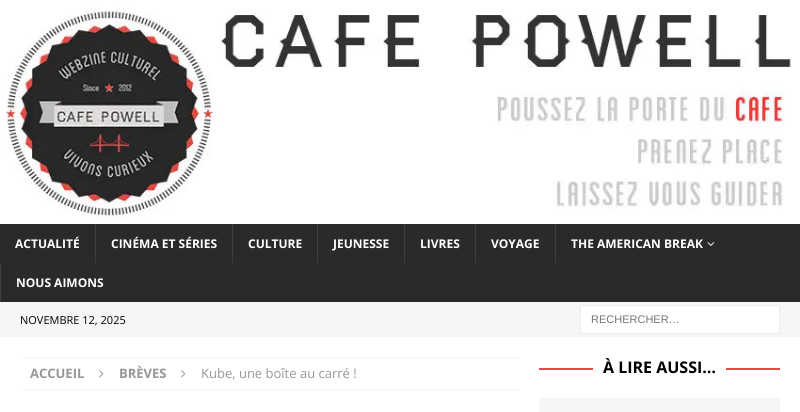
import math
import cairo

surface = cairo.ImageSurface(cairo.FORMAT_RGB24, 800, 412)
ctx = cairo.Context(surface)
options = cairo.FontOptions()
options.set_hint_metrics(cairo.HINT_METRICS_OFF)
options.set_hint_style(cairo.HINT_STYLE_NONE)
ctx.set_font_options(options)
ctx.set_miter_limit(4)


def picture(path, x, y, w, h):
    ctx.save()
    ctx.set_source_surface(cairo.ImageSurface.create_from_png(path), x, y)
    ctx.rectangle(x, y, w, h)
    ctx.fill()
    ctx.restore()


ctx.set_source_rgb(1, 1, 1)
ctx.paint()
picture("img1.png", 4, 7, 787, 211)
ctx.set_source_rgb(0.165, 0.165, 0.165)
ctx.rectangle(0, 224, 800, 78)
ctx.fill()
ctx.select_font_face("Open Sans", cairo.FONT_SLANT_NORMAL, cairo.FONT_WEIGHT_BOLD)
ctx.set_font_size(12)
ctx.set_source_rgb(1, 1, 1)
ctx.move_to(15, 248)
ctx.show_text("ACTUALITÉ")
ctx.set_source_rgb(0.247, 0.247, 0.247)
ctx.rectangle(95, 224, 1, 39)
ctx.fill()
ctx.set_source_rgb(1, 1, 1)
ctx.move_to(111, 248)
ctx.show_text("CINÉMA ET SÉRIES")
ctx.set_source_rgb(0.247, 0.247, 0.247)
ctx.rectangle(232, 224, 1, 39)
ctx.fill()
ctx.set_source_rgb(1, 1, 1)
ctx.move_to(248, 248)
ctx.show_text("CULTURE")
ctx.set_source_rgb(0.247, 0.247, 0.247)
ctx.rectangle(317, 224, 1, 39)
ctx.fill()
ctx.set_source_rgb(1, 1, 1)
ctx.move_to(333, 248)
ctx.show_text("JEUNESSE")
ctx.set_source_rgb(0.247, 0.247, 0.247)
ctx.rectangle(404, 224, 1, 39)
ctx.fill()
ctx.set_source_rgb(1, 1, 1)
ctx.move_to(420, 248)
ctx.show_text("LIVRES")
ctx.set_source_rgb(0.247, 0.247, 0.247)
ctx.rectangle(475, 224, 1, 39)
ctx.fill()
ctx.set_source_rgb(1, 1, 1)
ctx.move_to(491, 248)
ctx.show_text("VOYAGE")
ctx.set_source_rgb(0.247, 0.247, 0.247)
ctx.rectangle(555, 224, 1, 39)
ctx.fill()
ctx.set_source_rgb(1, 1, 1)
ctx.move_to(571, 248)
ctx.show_text("THE AMERICAN BREAK")
picture("img2.png", 707, 242, 8, 4)
ctx.set_source_rgb(0.247, 0.247, 0.247)
ctx.rectangle(0, 263, 1, 39)
ctx.fill()
ctx.set_source_rgb(1, 1, 1)
ctx.move_to(16, 287)
ctx.show_text("NOUS AIMONS")
ctx.set_source_rgb(0.961, 0.961, 0.961)
ctx.rectangle(0, 302, 800, 35)
ctx.fill()
ctx.select_font_face("Open Sans")
ctx.set_font_size(11)
ctx.set_source_rgb(0, 0, 0)
ctx.move_to(20, 324)
ctx.show_text("NOVEMBRE 12, 2025")
ctx.set_source_rgb(1, 1, 1)
ctx.rectangle(580.5, 305.5, 199, 28)
ctx.fill_preserve()
ctx.set_source_rgb(0.922, 0.922, 0.922)
ctx.set_line_width(1)
ctx.stroke()
ctx.select_font_face("Liberation Sans")
ctx.set_source_rgb(0.459, 0.459, 0.459)
ctx.move_to(591, 323)
ctx.show_text("RECHERCHER…")
ctx.new_path()
ctx.move_to(20, 357.5)
ctx.line_to(520, 357.5)
ctx.set_source_rgb(0.922, 0.922, 0.922)
ctx.set_dash([1, 1])
ctx.stroke()
ctx.new_path()
ctx.move_to(20, 389.5)
ctx.line_to(520, 389.5)
ctx.stroke()
ctx.select_font_face("Open Sans", cairo.FONT_SLANT_NORMAL, cairo.FONT_WEIGHT_BOLD)
ctx.set_font_size(13)
ctx.set_source_rgb(0.592, 0.592, 0.592)
ctx.move_to(30, 378)
ctx.show_text("ACCUEIL")
picture("img3.png", 99, 370, 5, 8)
ctx.move_to(119, 378)
ctx.show_text("BRÈVES")
picture("img3.png", 181, 370, 5, 8)
ctx.select_font_face("Open Sans")
ctx.move_to(201, 378)
ctx.show_text("Kube, une boîte au carré !")
ctx.set_source_rgb(0.902, 0.286, 0.275)
ctx.rectangle(539, 368, 241, 2)
ctx.fill()
ctx.set_source_rgb(1, 1, 1)
ctx.rectangle(593, 368, 133, 2)
ctx.fill()
ctx.select_font_face("Open Sans", cairo.FONT_SLANT_NORMAL, cairo.FONT_WEIGHT_BOLD)
ctx.set_font_size(16)
ctx.set_source_rgb(0, 0, 0)
ctx.move_to(603, 373)
ctx.show_text("À LIRE AUSSI…")
ctx.set_source_rgb(0.961, 0.961, 0.961)
ctx.rectangle(539, 398, 241, 14)
ctx.fill()
surface.write_to_png("page.png")
